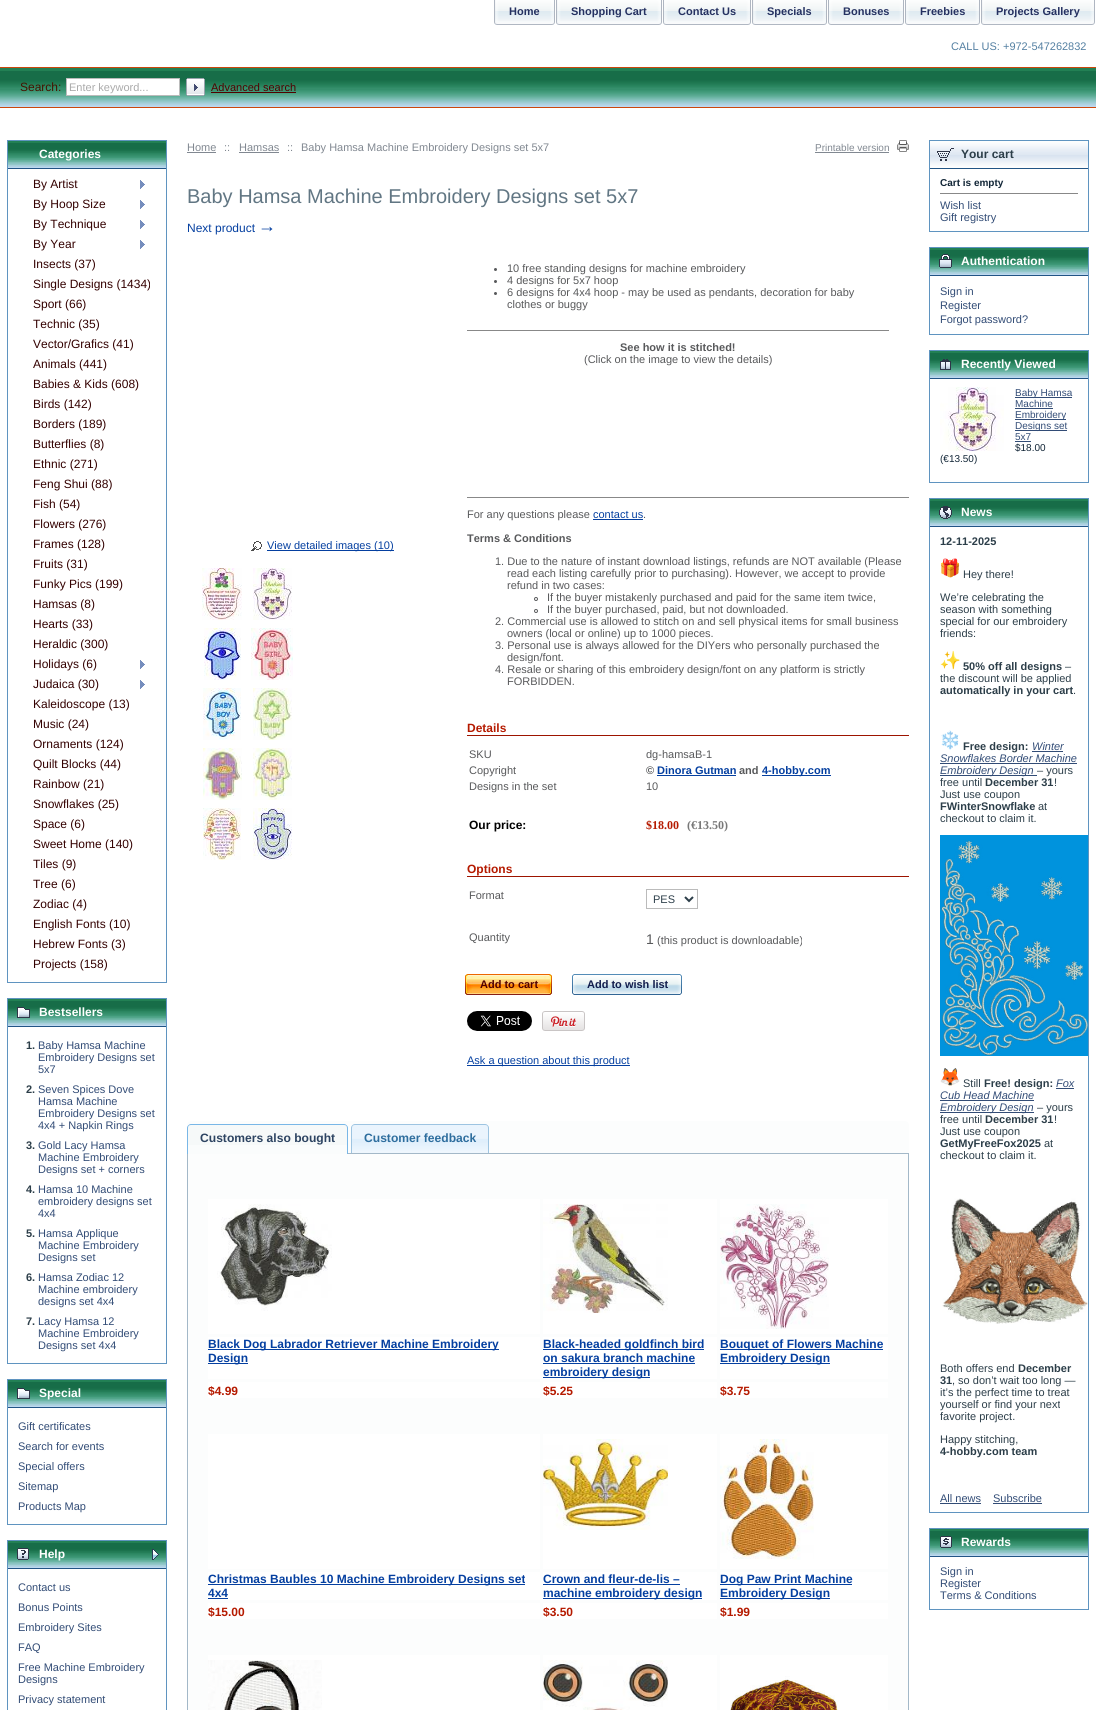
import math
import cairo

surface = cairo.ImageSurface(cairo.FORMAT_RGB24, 1096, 1710)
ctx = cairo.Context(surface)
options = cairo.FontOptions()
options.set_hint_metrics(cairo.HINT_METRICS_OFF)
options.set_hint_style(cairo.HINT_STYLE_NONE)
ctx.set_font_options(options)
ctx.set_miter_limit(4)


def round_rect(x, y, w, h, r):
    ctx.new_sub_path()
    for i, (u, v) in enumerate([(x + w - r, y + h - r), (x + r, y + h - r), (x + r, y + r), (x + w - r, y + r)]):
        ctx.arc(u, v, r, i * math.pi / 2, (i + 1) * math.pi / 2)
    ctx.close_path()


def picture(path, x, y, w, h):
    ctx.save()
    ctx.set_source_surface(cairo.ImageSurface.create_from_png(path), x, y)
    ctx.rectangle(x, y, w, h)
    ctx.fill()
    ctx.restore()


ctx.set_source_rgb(1, 1, 1)
ctx.paint()
picture("img1.png", 545, 0, 10, 25)
picture("img2.png", 494, 0, 51, 25)
ctx.select_font_face("Liberation Sans", cairo.FONT_SLANT_NORMAL, cairo.FONT_WEIGHT_BOLD)
ctx.set_font_size(11)
ctx.set_source_rgb(0.145, 0.192, 0.38)
ctx.move_to(509, 15)
ctx.show_text("Home")
picture("img1.png", 652, 0, 10, 25)
picture("img3.png", 556, 0, 96, 25)
ctx.move_to(571, 15)
ctx.show_text("Shopping Cart")
picture("img1.png", 741, 0, 10, 25)
picture("img4.png", 663, 0, 78, 25)
ctx.move_to(678, 15)
ctx.show_text("Contact Us")
picture("img1.png", 817, 0, 10, 25)
picture("img5.png", 752, 0, 65, 25)
ctx.move_to(767, 15)
ctx.show_text("Specials")
picture("img1.png", 894, 0, 10, 25)
picture("img6.png", 828, 0, 66, 25)
ctx.move_to(843, 15)
ctx.show_text("Bonuses")
picture("img1.png", 970, 0, 10, 25)
picture("img7.png", 905, 0, 65, 25)
ctx.move_to(920, 15)
ctx.show_text("Freebies")
picture("img1.png", 1085, 0, 10, 25)
picture("img8.png", 981, 0, 104, 25)
ctx.move_to(996, 15)
ctx.show_text("Projects Gallery")
ctx.select_font_face("Liberation Sans")
ctx.set_source_rgb(0.329, 0.502, 0.635)
ctx.move_to(951, 50)
ctx.show_text("CALL US: +972-547262832")
picture("img9.png", 0, 68, 1096, 39)
ctx.set_source_rgb(0.796, 0.282, 0.047)
ctx.rectangle(0, 67, 1096, 1)
ctx.fill()
ctx.rectangle(0, 107, 1096, 1)
ctx.fill()
ctx.set_font_size(12)
ctx.set_source_rgb(0.271, 0.075, 0)
ctx.move_to(20, 91)
ctx.show_text("Search:")
ctx.set_source_rgb(1, 1, 1)
ctx.rectangle(66.5, 78.5, 113, 17)
ctx.fill_preserve()
ctx.set_source_rgb(0.733, 0.733, 0.733)
ctx.set_line_width(1)
ctx.stroke()
ctx.set_font_size(11)
ctx.set_source_rgb(0.667, 0.667, 0.667)
ctx.move_to(69, 91)
ctx.show_text("Enter keyword...")
picture("img10.png", 186, 78, 19, 18)
ctx.set_source_rgb(0.318, 0, 0)
ctx.move_to(211, 91)
ctx.show_text("Advanced search")
ctx.rectangle(211, 92, 85, 1)
ctx.fill()
ctx.rectangle(7.5, 140.5, 159, 842)
ctx.set_source_rgb(0.373, 0.58, 0.753)
ctx.stroke()
picture("img11.png", 8, 141, 158, 27)
ctx.set_source_rgb(0.129, 0.329, 0.522)
ctx.rectangle(8, 168, 158, 1)
ctx.fill()
ctx.select_font_face("Liberation Sans", cairo.FONT_SLANT_NORMAL, cairo.FONT_WEIGHT_BOLD)
ctx.set_font_size(12)
ctx.set_source_rgb(1, 1, 1)
ctx.move_to(39, 158)
ctx.show_text("Categories")
picture("img12.png", 140, 180, 5, 9)
ctx.select_font_face("Liberation Sans")
ctx.set_source_rgb(0.2, 0, 0)
ctx.move_to(33, 188)
ctx.show_text("By Artist")
picture("img12.png", 140, 200, 5, 9)
ctx.move_to(33, 208)
ctx.show_text("By Hoop Size")
picture("img12.png", 140, 220, 5, 9)
ctx.move_to(33, 228)
ctx.show_text("By Technique")
picture("img12.png", 140, 240, 5, 9)
ctx.move_to(33, 248)
ctx.show_text("By Year")
ctx.move_to(33, 268)
ctx.show_text("Insects (37)")
ctx.save()
ctx.rectangle(23, 276, 127, 16)
ctx.clip()
ctx.move_to(33, 288)
ctx.show_text("Single Designs (1434)")
ctx.restore()
ctx.move_to(33, 308)
ctx.show_text("Sport (66)")
ctx.move_to(33, 328)
ctx.show_text("Technic (35)")
ctx.move_to(33, 348)
ctx.show_text("Vector/Grafics (41)")
ctx.move_to(33, 368)
ctx.show_text("Animals (441)")
ctx.move_to(33, 388)
ctx.show_text("Babies & Kids (608)")
ctx.move_to(33, 408)
ctx.show_text("Birds (142)")
ctx.move_to(33, 428)
ctx.show_text("Borders (189)")
ctx.move_to(33, 448)
ctx.show_text("Butterflies (8)")
ctx.move_to(33, 468)
ctx.show_text("Ethnic (271)")
ctx.move_to(33, 488)
ctx.show_text("Feng Shui (88)")
ctx.move_to(33, 508)
ctx.show_text("Fish (54)")
ctx.move_to(33, 528)
ctx.show_text("Flowers (276)")
ctx.move_to(33, 548)
ctx.show_text("Frames (128)")
ctx.move_to(33, 568)
ctx.show_text("Fruits (31)")
ctx.move_to(33, 588)
ctx.show_text("Funky Pics (199)")
ctx.move_to(33, 608)
ctx.show_text("Hamsas (8)")
ctx.move_to(33, 628)
ctx.show_text("Hearts (33)")
ctx.move_to(33, 648)
ctx.show_text("Heraldic (300)")
picture("img12.png", 140, 660, 5, 9)
ctx.move_to(33, 668)
ctx.show_text("Holidays (6)")
picture("img12.png", 140, 680, 5, 9)
ctx.move_to(33, 688)
ctx.show_text("Judaica (30)")
ctx.move_to(33, 708)
ctx.show_text("Kaleidoscope (13)")
ctx.move_to(33, 728)
ctx.show_text("Music (24)")
ctx.move_to(33, 748)
ctx.show_text("Ornaments (124)")
ctx.move_to(33, 768)
ctx.show_text("Quilt Blocks (44)")
ctx.move_to(33, 788)
ctx.show_text("Rainbow (21)")
ctx.move_to(33, 808)
ctx.show_text("Snowflakes (25)")
ctx.move_to(33, 828)
ctx.show_text("Space (6)")
ctx.move_to(33, 848)
ctx.show_text("Sweet Home (140)")
ctx.move_to(33, 868)
ctx.show_text("Tiles (9)")
ctx.move_to(33, 888)
ctx.show_text("Tree (6)")
ctx.move_to(33, 908)
ctx.show_text("Zodiac (4)")
ctx.move_to(33, 928)
ctx.show_text("English Fonts (10)")
ctx.move_to(33, 948)
ctx.show_text("Hebrew Fonts (3)")
ctx.move_to(33, 968)
ctx.show_text("Projects (158)")
ctx.rectangle(7.5, 998.5, 159, 365)
ctx.set_source_rgb(0.373, 0.58, 0.753)
ctx.stroke()
picture("img11.png", 8, 999, 158, 27)
ctx.set_source_rgb(0.129, 0.329, 0.522)
ctx.rectangle(8, 1026, 158, 1)
ctx.fill()
picture("img13.png", 17, 1007, 13, 11)
ctx.select_font_face("Liberation Sans", cairo.FONT_SLANT_NORMAL, cairo.FONT_WEIGHT_BOLD)
ctx.set_source_rgb(1, 1, 1)
ctx.move_to(39, 1016)
ctx.show_text("Bestsellers")
ctx.set_font_size(11)
ctx.set_source_rgb(0.173, 0.243, 0.286)
ctx.move_to(26, 1049)
ctx.show_text("1.")
ctx.select_font_face("Liberation Sans")
ctx.set_source_rgb(0.196, 0.298, 0.463)
ctx.move_to(38, 1049)
ctx.show_text("Baby Hamsa Machine")
ctx.move_to(38, 1061)
ctx.show_text("Embroidery Designs set")
ctx.move_to(38, 1073)
ctx.show_text("5x7")
ctx.select_font_face("Liberation Sans", cairo.FONT_SLANT_NORMAL, cairo.FONT_WEIGHT_BOLD)
ctx.set_source_rgb(0.173, 0.243, 0.286)
ctx.move_to(26, 1093)
ctx.show_text("2.")
ctx.select_font_face("Liberation Sans")
ctx.set_source_rgb(0.196, 0.298, 0.463)
ctx.move_to(38, 1093)
ctx.show_text("Seven Spices Dove")
ctx.move_to(38, 1105)
ctx.show_text("Hamsa Machine")
ctx.move_to(38, 1117)
ctx.show_text("Embroidery Designs set")
ctx.move_to(38, 1129)
ctx.show_text("4x4 + Napkin Rings")
ctx.select_font_face("Liberation Sans", cairo.FONT_SLANT_NORMAL, cairo.FONT_WEIGHT_BOLD)
ctx.set_source_rgb(0.173, 0.243, 0.286)
ctx.move_to(26, 1149)
ctx.show_text("3.")
ctx.select_font_face("Liberation Sans")
ctx.set_source_rgb(0.196, 0.298, 0.463)
ctx.move_to(38, 1149)
ctx.show_text("Gold Lacy Hamsa")
ctx.move_to(38, 1161)
ctx.show_text("Machine Embroidery")
ctx.move_to(38, 1173)
ctx.show_text("Designs set + corners")
ctx.select_font_face("Liberation Sans", cairo.FONT_SLANT_NORMAL, cairo.FONT_WEIGHT_BOLD)
ctx.set_source_rgb(0.173, 0.243, 0.286)
ctx.move_to(26, 1193)
ctx.show_text("4.")
ctx.select_font_face("Liberation Sans")
ctx.set_source_rgb(0.196, 0.298, 0.463)
ctx.move_to(38, 1193)
ctx.show_text("Hamsa 10 Machine")
ctx.move_to(38, 1205)
ctx.show_text("embroidery designs set")
ctx.move_to(38, 1217)
ctx.show_text("4x4")
ctx.select_font_face("Liberation Sans", cairo.FONT_SLANT_NORMAL, cairo.FONT_WEIGHT_BOLD)
ctx.set_source_rgb(0.173, 0.243, 0.286)
ctx.move_to(26, 1237)
ctx.show_text("5.")
ctx.select_font_face("Liberation Sans")
ctx.set_source_rgb(0.196, 0.298, 0.463)
ctx.move_to(38, 1237)
ctx.show_text("Hamsa Applique")
ctx.move_to(38, 1249)
ctx.show_text("Machine Embroidery")
ctx.move_to(38, 1261)
ctx.show_text("Designs set")
ctx.select_font_face("Liberation Sans", cairo.FONT_SLANT_NORMAL, cairo.FONT_WEIGHT_BOLD)
ctx.set_source_rgb(0.173, 0.243, 0.286)
ctx.move_to(26, 1281)
ctx.show_text("6.")
ctx.select_font_face("Liberation Sans")
ctx.set_source_rgb(0.196, 0.298, 0.463)
ctx.move_to(38, 1281)
ctx.show_text("Hamsa Zodiac 12")
ctx.move_to(38, 1293)
ctx.show_text("Machine embroidery")
ctx.move_to(38, 1305)
ctx.show_text("designs set 4x4")
ctx.select_font_face("Liberation Sans", cairo.FONT_SLANT_NORMAL, cairo.FONT_WEIGHT_BOLD)
ctx.set_source_rgb(0.173, 0.243, 0.286)
ctx.move_to(26, 1325)
ctx.show_text("7.")
ctx.select_font_face("Liberation Sans")
ctx.set_source_rgb(0.196, 0.298, 0.463)
ctx.move_to(38, 1325)
ctx.show_text("Lacy Hamsa 12")
ctx.move_to(38, 1337)
ctx.show_text("Machine Embroidery")
ctx.move_to(38, 1349)
ctx.show_text("Designs set 4x4")
ctx.rectangle(7.5, 1379.5, 159, 145)
ctx.set_source_rgb(0.373, 0.58, 0.753)
ctx.stroke()
picture("img11.png", 8, 1380, 158, 27)
ctx.set_source_rgb(0.129, 0.329, 0.522)
ctx.rectangle(8, 1407, 158, 1)
ctx.fill()
picture("img13.png", 17, 1388, 13, 11)
ctx.select_font_face("Liberation Sans", cairo.FONT_SLANT_NORMAL, cairo.FONT_WEIGHT_BOLD)
ctx.set_font_size(12)
ctx.set_source_rgb(1, 1, 1)
ctx.move_to(39, 1397)
ctx.show_text("Special")
ctx.select_font_face("Liberation Sans")
ctx.set_font_size(11)
ctx.set_source_rgb(0.196, 0.298, 0.463)
ctx.move_to(18, 1430)
ctx.show_text("Gift certificates")
ctx.move_to(18, 1450)
ctx.show_text("Search for events")
ctx.move_to(18, 1470)
ctx.show_text("Special offers")
ctx.move_to(18, 1490)
ctx.show_text("Sitemap")
ctx.move_to(18, 1510)
ctx.show_text("Products Map")
ctx.rectangle(7.5, 1540.5, 159, 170)
ctx.set_source_rgb(0.373, 0.58, 0.753)
ctx.stroke()
picture("img11.png", 8, 1541, 158, 27)
ctx.set_source_rgb(0.129, 0.329, 0.522)
ctx.rectangle(8, 1568, 158, 1)
ctx.fill()
picture("img14.png", 17, 1548, 12, 12)
ctx.select_font_face("Liberation Sans", cairo.FONT_SLANT_NORMAL, cairo.FONT_WEIGHT_BOLD)
ctx.set_font_size(12)
ctx.set_source_rgb(1, 1, 1)
ctx.move_to(39, 1558)
ctx.show_text("Help")
picture("img15.png", 152, 1549, 7, 11)
ctx.select_font_face("Liberation Sans")
ctx.set_font_size(11)
ctx.set_source_rgb(0.196, 0.298, 0.463)
ctx.move_to(18, 1591)
ctx.show_text("Contact us")
ctx.move_to(18, 1611)
ctx.show_text("Bonus Points")
ctx.move_to(18, 1631)
ctx.show_text("Embroidery Sites")
ctx.move_to(18, 1651)
ctx.show_text("FAQ")
ctx.move_to(18, 1671)
ctx.show_text("Free Machine Embroidery")
ctx.move_to(18, 1683)
ctx.show_text("Designs")
ctx.move_to(18, 1703)
ctx.show_text("Privacy statement")
ctx.set_source_rgb(0.506, 0.533, 0.569)
ctx.move_to(187, 151)
ctx.show_text("Home")
ctx.rectangle(187, 152, 29, 1)
ctx.fill()
ctx.move_to(224, 151)
ctx.show_text("::")
ctx.move_to(239, 151)
ctx.show_text("Hamsas")
ctx.rectangle(239, 152, 40, 1)
ctx.fill()
ctx.move_to(287, 151)
ctx.show_text("::")
ctx.move_to(301, 151)
ctx.show_text("Baby Hamsa Machine Embroidery Designs set 5x7")
ctx.set_font_size(10)
ctx.move_to(815, 151)
ctx.show_text("Printable version")
ctx.rectangle(815, 152, 74, 1)
ctx.fill()
picture("img16.png", 897, 140, 12, 12)
ctx.set_font_size(20)
ctx.set_source_rgb(0.38, 0.463, 0.514)
ctx.move_to(187, 203)
ctx.show_text("Baby Hamsa Machine Embroidery Designs set 5x7")
ctx.set_font_size(12)
ctx.set_source_rgb(0.016, 0.247, 0.627)
ctx.move_to(187, 232)
ctx.show_text("Next product")
ctx.set_font_size(18)
ctx.move_to(258, 232)
ctx.show_text("→")
picture("img17.png", 251, 541, 11, 10)
ctx.rectangle(267, 550, 127, 1)
ctx.fill()
ctx.set_font_size(11)
ctx.move_to(267, 549)
ctx.show_text("View detailed images (10)")
picture("img18.png", 202, 568, 40, 52)
picture("img19.png", 253, 568, 39, 52)
picture("img20.png", 204, 628, 37, 52)
picture("img21.png", 251, 628, 42, 52)
picture("img22.png", 203, 688, 38, 52)
picture("img23.png", 253, 688, 39, 52)
picture("img24.png", 203, 748, 39, 52)
picture("img25.png", 253, 748, 39, 52)
picture("img26.png", 203, 808, 38, 52)
picture("img27.png", 253, 808, 39, 52)
ctx.set_source_rgb(0.345, 0.349, 0.357)
ctx.arc(495.5, 269.5, 1.5, 0, 2 * math.pi)
ctx.fill()
ctx.move_to(507, 272)
ctx.show_text("10 free standing designs for machine embroidery")
ctx.new_path()
ctx.arc(495.5, 281.5, 1.5, 0, 2 * math.pi)
ctx.fill()
ctx.move_to(507, 284)
ctx.show_text("4 designs for 5x7 hoop")
ctx.new_path()
ctx.arc(495.5, 293.5, 1.5, 0, 2 * math.pi)
ctx.fill()
ctx.move_to(507, 296)
ctx.show_text("6 designs for 4x4 hoop - may be used as pendants, decoration for baby")
ctx.move_to(507, 308)
ctx.show_text("clothes or buggy")
ctx.set_source_rgb(0.533, 0.533, 0.533)
ctx.rectangle(467, 330, 422, 1)
ctx.fill()
ctx.select_font_face("Liberation Sans", cairo.FONT_SLANT_NORMAL, cairo.FONT_WEIGHT_BOLD)
ctx.set_source_rgb(0.345, 0.349, 0.357)
ctx.move_to(620, 351)
ctx.show_text("See how it is stitched!")
ctx.select_font_face("Liberation Sans")
ctx.move_to(584, 363)
ctx.show_text("(Click on the image to view the details)")
ctx.set_source_rgb(0.533, 0.533, 0.533)
ctx.rectangle(467, 497, 442, 1)
ctx.fill()
ctx.set_source_rgb(0.345, 0.349, 0.357)
ctx.move_to(467, 518)
ctx.show_text("For any questions please")
ctx.set_source_rgb(0.016, 0.247, 0.627)
ctx.move_to(593, 518)
ctx.show_text("contact us")
ctx.rectangle(593, 519, 50, 1)
ctx.fill()
ctx.set_source_rgb(0.345, 0.349, 0.357)
ctx.move_to(643, 518)
ctx.show_text(".")
ctx.select_font_face("Liberation Sans", cairo.FONT_SLANT_NORMAL, cairo.FONT_WEIGHT_BOLD)
ctx.move_to(467, 542)
ctx.show_text("Terms & Conditions")
ctx.select_font_face("Liberation Sans")
ctx.move_to(495, 565)
ctx.show_text("1. Due to the nature of instant download listings, refunds are NOT available (Please")
ctx.move_to(507, 577)
ctx.show_text("read each listing carefully prior to purchasing). However, we accept to provide")
ctx.move_to(507, 589)
ctx.show_text("refund in two cases:")
ctx.new_path()
ctx.arc(536, 599, 1.5, 0, 2 * math.pi)
ctx.stroke()
ctx.move_to(547, 601)
ctx.show_text("If the buyer mistakenly purchased and paid for the same item twice,")
ctx.new_path()
ctx.arc(536, 611, 1.5, 0, 2 * math.pi)
ctx.stroke()
ctx.move_to(547, 613)
ctx.show_text("If the buyer purchased, paid, but not downloaded.")
ctx.move_to(495, 625)
ctx.show_text("2. Commercial use is allowed to stitch on and sell physical items for small business")
ctx.move_to(507, 637)
ctx.show_text("owners (local or online) up to 1000 pieces.")
ctx.move_to(495, 649)
ctx.show_text("3. Personal use is always allowed for the DIYers who personally purchased the")
ctx.move_to(507, 661)
ctx.show_text("design/font.")
ctx.move_to(495, 673)
ctx.show_text("4. Resale or sharing of this embroidery design/font on any platform is strictly")
ctx.move_to(507, 685)
ctx.show_text("FORBIDDEN.")
ctx.set_source_rgb(0.616, 0.082, 0)
ctx.rectangle(467, 735, 442, 1)
ctx.fill()
ctx.select_font_face("Liberation Sans", cairo.FONT_SLANT_NORMAL, cairo.FONT_WEIGHT_BOLD)
ctx.set_font_size(12)
ctx.set_source_rgb(0.71, 0.102, 0)
ctx.move_to(467, 732)
ctx.show_text("Details")
ctx.select_font_face("Liberation Sans")
ctx.set_font_size(11)
ctx.set_source_rgb(0.345, 0.349, 0.357)
ctx.move_to(469, 758)
ctx.show_text("SKU")
ctx.move_to(646, 758)
ctx.show_text("dg-hamsaB-1")
ctx.move_to(469, 774)
ctx.show_text("Copyright")
ctx.select_font_face("Liberation Sans", cairo.FONT_SLANT_NORMAL, cairo.FONT_WEIGHT_BOLD)
ctx.move_to(646, 774)
ctx.show_text("©")
ctx.set_source_rgb(0.016, 0.247, 0.627)
ctx.move_to(657, 774)
ctx.show_text("Dinora Gutman")
ctx.rectangle(657, 775, 79, 1)
ctx.fill()
ctx.set_source_rgb(0.345, 0.349, 0.357)
ctx.move_to(739, 774)
ctx.show_text("and")
ctx.set_source_rgb(0.016, 0.247, 0.627)
ctx.rectangle(762, 775, 69, 1)
ctx.fill()
ctx.move_to(762, 774)
ctx.show_text("4-hobby.com")
ctx.select_font_face("Liberation Sans")
ctx.set_source_rgb(0.345, 0.349, 0.357)
ctx.move_to(469, 790)
ctx.show_text("Designs in the set")
ctx.move_to(646, 790)
ctx.show_text("10")
ctx.select_font_face("Liberation Sans", cairo.FONT_SLANT_NORMAL, cairo.FONT_WEIGHT_BOLD)
ctx.set_font_size(12)
ctx.set_source_rgb(0.004, 0.004, 0.004)
ctx.move_to(469, 829)
ctx.show_text("Our price:")
ctx.select_font_face("Liberation Serif", cairo.FONT_SLANT_NORMAL, cairo.FONT_WEIGHT_BOLD)
ctx.set_source_rgb(0.71, 0.102, 0)
ctx.move_to(646, 829)
ctx.show_text("$18.00")
ctx.set_source_rgb(0.471, 0.471, 0.471)
ctx.move_to(687, 829)
ctx.show_text("(€13.50)")
ctx.set_source_rgb(0.616, 0.082, 0)
ctx.rectangle(467, 876, 442, 1)
ctx.fill()
ctx.select_font_face("Liberation Sans", cairo.FONT_SLANT_NORMAL, cairo.FONT_WEIGHT_BOLD)
ctx.set_source_rgb(0.71, 0.102, 0)
ctx.move_to(467, 873)
ctx.show_text("Options")
ctx.select_font_face("Liberation Sans")
ctx.set_font_size(11)
ctx.set_source_rgb(0.345, 0.349, 0.357)
ctx.move_to(469, 899)
ctx.show_text("Format")
ctx.rectangle(646.5, 889.5, 51, 19)
ctx.set_source_rgb(0.733, 0.733, 0.733)
ctx.stroke()
ctx.new_path()
ctx.move_to(685, 897)
ctx.line_to(689, 901)
ctx.line_to(693, 897)
ctx.set_source_rgb(0.173, 0.243, 0.286)
ctx.set_line_width(2)
ctx.stroke()
ctx.move_to(653, 903)
ctx.show_text("PES")
ctx.set_source_rgb(0.345, 0.349, 0.357)
ctx.move_to(469, 941)
ctx.show_text("Quantity")
ctx.set_font_size(14)
ctx.move_to(646, 944)
ctx.show_text("1")
ctx.set_font_size(11)
ctx.move_to(657, 944)
ctx.show_text("(this product is downloadable)")
picture("img28.png", 542, 974, 10, 21)
picture("img29.png", 465, 974, 77, 21)
ctx.select_font_face("Liberation Sans", cairo.FONT_SLANT_NORMAL, cairo.FONT_WEIGHT_BOLD)
ctx.set_source_rgb(0.318, 0, 0)
ctx.move_to(480, 988)
ctx.show_text("Add to cart")
picture("img30.png", 672, 974, 10, 21)
picture("img31.png", 572, 974, 100, 21)
ctx.set_source_rgb(0.067, 0.114, 0.302)
ctx.move_to(587, 988)
ctx.show_text("Add to wish list")
picture("img32.png", 467, 1011, 65, 20)
picture("img33.png", 542, 1011, 43, 20)
ctx.set_source_rgb(0.016, 0.247, 0.627)
ctx.rectangle(467, 1065, 163, 1)
ctx.fill()
ctx.select_font_face("Liberation Sans")
ctx.move_to(467, 1064)
ctx.show_text("Ask a question about this product")
ctx.set_source_rgb(0.988, 0.992, 0.992)
round_rect(187, 1121, 722, 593, 4)
ctx.fill()
ctx.rectangle(187.5, 1153.5, 721, 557)
ctx.set_source_rgb(0.639, 0.722, 0.784)
ctx.set_line_width(1)
ctx.stroke()
ctx.set_source_rgb(0.961, 0.973, 0.976)
ctx.new_path()
ctx.move_to(191, 1124)
ctx.line_to(344, 1124)
ctx.curve_to(346, 1124, 348, 1126, 348, 1128)
ctx.line_to(348, 1154)
ctx.line_to(187, 1154)
ctx.line_to(187, 1128)
ctx.curve_to(187, 1126, 189, 1124, 191, 1124)
ctx.close_path()
ctx.fill()
ctx.set_source_rgb(0.98, 0.988, 0.988)
ctx.rectangle(188, 1145, 159, 9)
ctx.fill()
ctx.set_source_rgb(0.475, 0.718, 0.906)
ctx.set_fill_rule(cairo.FILL_RULE_EVEN_ODD)
ctx.new_path()
ctx.move_to(191, 1124)
ctx.line_to(344, 1124)
ctx.curve_to(346, 1124, 348, 1126, 348, 1128)
ctx.line_to(348, 1154)
ctx.line_to(187, 1154)
ctx.line_to(187, 1128)
ctx.curve_to(187, 1126, 189, 1124, 191, 1124)
ctx.close_path()
ctx.move_to(191, 1125)
ctx.line_to(344, 1125)
ctx.curve_to(346, 1125, 347, 1126, 347, 1128)
ctx.line_to(347, 1154)
ctx.line_to(188, 1154)
ctx.line_to(188, 1128)
ctx.curve_to(188, 1126, 189, 1125, 191, 1125)
ctx.close_path()
ctx.fill()
ctx.select_font_face("Liberation Sans", cairo.FONT_SLANT_NORMAL, cairo.FONT_WEIGHT_BOLD)
ctx.set_font_size(12.1)
ctx.set_source_rgb(0.176, 0.267, 0.384)
ctx.move_to(200, 1142)
ctx.show_text("Customers also bought")
picture("img34.png", 351, 1124, 138, 29)
ctx.set_source_rgb(0.616, 0.769, 0.882)
ctx.new_path()
ctx.move_to(355, 1124)
ctx.line_to(485, 1124)
ctx.curve_to(487, 1124, 489, 1126, 489, 1128)
ctx.line_to(489, 1153)
ctx.line_to(351, 1153)
ctx.line_to(351, 1128)
ctx.curve_to(351, 1126, 353, 1124, 355, 1124)
ctx.close_path()
ctx.move_to(355, 1125)
ctx.line_to(485, 1125)
ctx.curve_to(487, 1125, 488, 1126, 488, 1128)
ctx.line_to(488, 1153)
ctx.line_to(352, 1153)
ctx.line_to(352, 1128)
ctx.curve_to(352, 1126, 353, 1125, 355, 1125)
ctx.close_path()
ctx.fill()
ctx.set_source_rgb(0.18, 0.431, 0.62)
ctx.move_to(364, 1142)
ctx.show_text("Customer feedback")
ctx.set_source_rgb(1, 1, 1)
ctx.rectangle(208, 1199, 332, 135)
ctx.fill()
picture("img35.png", 217, 1204, 115, 107)
ctx.rectangle(543, 1199, 174, 135)
ctx.fill()
picture("img36.png", 543, 1204, 125, 109)
ctx.rectangle(720, 1199, 168, 135)
ctx.fill()
picture("img37.png", 720, 1204, 109, 125)
ctx.rectangle(208, 1337, 332, 42)
ctx.fill()
ctx.set_source_rgb(0.016, 0.247, 0.627)
ctx.rectangle(208, 1349, 291, 1)
ctx.fill()
ctx.set_font_size(12)
ctx.move_to(208, 1348)
ctx.show_text("Black Dog Labrador Retriever Machine Embroidery")
ctx.rectangle(208, 1363, 40, 1)
ctx.fill()
ctx.move_to(208, 1362)
ctx.show_text("Design")
ctx.set_source_rgb(1, 1, 1)
ctx.rectangle(543, 1337, 174, 42)
ctx.fill()
ctx.set_source_rgb(0.016, 0.247, 0.627)
ctx.rectangle(543, 1349, 161, 1)
ctx.fill()
ctx.move_to(543, 1348)
ctx.show_text("Black-headed goldfinch bird")
ctx.move_to(543, 1362)
ctx.show_text("on sakura branch machine")
ctx.rectangle(543, 1363, 152, 1)
ctx.fill()
ctx.rectangle(543, 1377, 107, 1)
ctx.fill()
ctx.move_to(543, 1376)
ctx.show_text("embroidery design")
ctx.set_source_rgb(1, 1, 1)
ctx.rectangle(720, 1337, 168, 42)
ctx.fill()
ctx.set_source_rgb(0.016, 0.247, 0.627)
ctx.rectangle(720, 1349, 163, 1)
ctx.fill()
ctx.move_to(720, 1348)
ctx.show_text("Bouquet of Flowers Machine")
ctx.rectangle(720, 1363, 110, 1)
ctx.fill()
ctx.move_to(720, 1362)
ctx.show_text("Embroidery Design")
ctx.set_source_rgb(1, 1, 1)
ctx.rectangle(208, 1382, 332, 16)
ctx.fill()
ctx.set_source_rgb(0.71, 0.102, 0)
ctx.move_to(208, 1395)
ctx.show_text("$4.99")
ctx.set_source_rgb(1, 1, 1)
ctx.rectangle(543, 1382, 174, 16)
ctx.fill()
ctx.set_source_rgb(0.71, 0.102, 0)
ctx.move_to(543, 1395)
ctx.show_text("$5.25")
ctx.set_source_rgb(1, 1, 1)
ctx.rectangle(720, 1382, 168, 16)
ctx.fill()
ctx.set_source_rgb(0.71, 0.102, 0)
ctx.move_to(720, 1395)
ctx.show_text("$3.75")
ctx.set_source_rgb(1, 1, 1)
ctx.rectangle(208, 1434, 332, 135)
ctx.fill()
ctx.rectangle(543, 1434, 174, 135)
ctx.fill()
picture("img38.png", 543, 1439, 125, 91)
ctx.rectangle(720, 1434, 168, 135)
ctx.fill()
picture("img39.png", 720, 1439, 94, 121)
ctx.rectangle(208, 1572, 332, 28)
ctx.fill()
ctx.set_source_rgb(0.016, 0.247, 0.627)
ctx.rectangle(208, 1584, 317, 1)
ctx.fill()
ctx.move_to(208, 1583)
ctx.show_text("Christmas Baubles 10 Machine Embroidery Designs set")
ctx.move_to(208, 1597)
ctx.show_text("4x4")
ctx.rectangle(208, 1598, 20, 1)
ctx.fill()
ctx.set_source_rgb(1, 1, 1)
ctx.rectangle(543, 1572, 174, 28)
ctx.fill()
ctx.set_source_rgb(0.016, 0.247, 0.627)
ctx.move_to(543, 1583)
ctx.show_text("Crown and fleur-de-lis –")
ctx.rectangle(543, 1584, 137, 1)
ctx.fill()
ctx.rectangle(543, 1598, 159, 1)
ctx.fill()
ctx.move_to(543, 1597)
ctx.show_text("machine embroidery design")
ctx.set_source_rgb(1, 1, 1)
ctx.rectangle(720, 1572, 168, 28)
ctx.fill()
ctx.set_source_rgb(0.016, 0.247, 0.627)
ctx.rectangle(720, 1584, 132, 1)
ctx.fill()
ctx.move_to(720, 1583)
ctx.show_text("Dog Paw Print Machine")
ctx.rectangle(720, 1598, 110, 1)
ctx.fill()
ctx.move_to(720, 1597)
ctx.show_text("Embroidery Design")
ctx.set_source_rgb(1, 1, 1)
ctx.rectangle(208, 1603, 332, 16)
ctx.fill()
ctx.set_source_rgb(0.71, 0.102, 0)
ctx.move_to(208, 1616)
ctx.show_text("$15.00")
ctx.set_source_rgb(1, 1, 1)
ctx.rectangle(543, 1603, 174, 16)
ctx.fill()
ctx.set_source_rgb(0.71, 0.102, 0)
ctx.move_to(543, 1616)
ctx.show_text("$3.50")
ctx.set_source_rgb(1, 1, 1)
ctx.rectangle(720, 1603, 168, 16)
ctx.fill()
ctx.set_source_rgb(0.71, 0.102, 0)
ctx.move_to(720, 1616)
ctx.show_text("$1.99")
ctx.set_source_rgb(1, 1, 1)
ctx.rectangle(208, 1655, 332, 55)
ctx.fill()
picture("img40.png", 208, 1660, 114, 50)
ctx.rectangle(543, 1655, 174, 55)
ctx.fill()
picture("img41.png", 543, 1660, 125, 50)
ctx.rectangle(720, 1655, 168, 55)
ctx.fill()
picture("img42.png", 730, 1676, 110, 34)
ctx.rectangle(929.5, 140.5, 159, 91)
ctx.set_source_rgb(0.373, 0.58, 0.753)
ctx.stroke()
picture("img43.png", 930, 141, 158, 27)
ctx.set_source_rgb(0.129, 0.329, 0.522)
ctx.rectangle(930, 168, 158, 1)
ctx.fill()
picture("img44.png", 937, 148, 17, 13)
ctx.set_source_rgb(0.173, 0.243, 0.286)
ctx.move_to(961, 158)
ctx.show_text("Your cart")
ctx.set_font_size(10)
ctx.set_source_rgb(0.067, 0.145, 0.212)
ctx.move_to(940, 186)
ctx.show_text("Cart is empty")
ctx.set_source_rgb(0.533, 0.533, 0.533)
ctx.rectangle(940, 193, 138, 1)
ctx.fill()
ctx.select_font_face("Liberation Sans")
ctx.set_font_size(11)
ctx.set_source_rgb(0.196, 0.298, 0.463)
ctx.move_to(940, 209)
ctx.show_text("Wish list")
ctx.move_to(940, 221)
ctx.show_text("Gift registry")
ctx.rectangle(929.5, 247.5, 159, 87)
ctx.set_source_rgb(0.373, 0.58, 0.753)
ctx.stroke()
picture("img11.png", 930, 248, 158, 27)
ctx.set_source_rgb(0.129, 0.329, 0.522)
ctx.rectangle(930, 275, 158, 1)
ctx.fill()
picture("img45.png", 939, 254, 13, 14)
ctx.select_font_face("Liberation Sans", cairo.FONT_SLANT_NORMAL, cairo.FONT_WEIGHT_BOLD)
ctx.set_font_size(12)
ctx.set_source_rgb(1, 1, 1)
ctx.move_to(961, 265)
ctx.show_text("Authentication")
ctx.select_font_face("Liberation Sans")
ctx.set_font_size(11)
ctx.set_source_rgb(0.196, 0.298, 0.463)
ctx.move_to(940, 295)
ctx.show_text("Sign in")
ctx.move_to(940, 309)
ctx.show_text("Register")
ctx.move_to(940, 323)
ctx.show_text("Forgot password?")
ctx.rectangle(929.5, 350.5, 159, 132)
ctx.set_source_rgb(0.373, 0.58, 0.753)
ctx.stroke()
picture("img11.png", 930, 351, 158, 27)
ctx.set_source_rgb(0.129, 0.329, 0.522)
ctx.rectangle(930, 378, 158, 1)
ctx.fill()
picture("img46.png", 940, 359, 11, 11)
ctx.select_font_face("Liberation Sans", cairo.FONT_SLANT_NORMAL, cairo.FONT_WEIGHT_BOLD)
ctx.set_font_size(12)
ctx.set_source_rgb(1, 1, 1)
ctx.move_to(961, 368)
ctx.show_text("Recently Viewed")
picture("img47.png", 940, 387, 64, 64)
ctx.set_source_rgb(0.196, 0.298, 0.463)
ctx.rectangle(1015, 397, 57, 1)
ctx.fill()
ctx.select_font_face("Liberation Sans")
ctx.set_font_size(10)
ctx.move_to(1015, 396)
ctx.show_text("Baby Hamsa")
ctx.move_to(1015, 407)
ctx.show_text("Machine")
ctx.rectangle(1015, 408, 38, 1)
ctx.fill()
ctx.rectangle(1015, 419, 51, 1)
ctx.fill()
ctx.move_to(1015, 418)
ctx.show_text("Embroidery")
ctx.rectangle(1015, 430, 52, 1)
ctx.fill()
ctx.move_to(1015, 429)
ctx.show_text("Designs set")
ctx.move_to(1015, 440)
ctx.show_text("5x7")
ctx.rectangle(1015, 441, 16, 1)
ctx.fill()
ctx.set_source_rgb(0.067, 0.145, 0.212)
ctx.move_to(1015, 451)
ctx.show_text("$18.00")
ctx.move_to(940, 462)
ctx.show_text("(€13.50)")
ctx.rectangle(929.5, 498.5, 159, 1014)
ctx.set_source_rgb(0.373, 0.58, 0.753)
ctx.stroke()
picture("img11.png", 930, 499, 158, 27)
ctx.set_source_rgb(0.129, 0.329, 0.522)
ctx.rectangle(930, 526, 158, 1)
ctx.fill()
picture("img48.png", 939, 506, 13, 13)
ctx.select_font_face("Liberation Sans", cairo.FONT_SLANT_NORMAL, cairo.FONT_WEIGHT_BOLD)
ctx.set_font_size(12)
ctx.set_source_rgb(1, 1, 1)
ctx.move_to(961, 516)
ctx.show_text("News")
ctx.set_font_size(11)
ctx.set_source_rgb(0.173, 0.243, 0.286)
ctx.move_to(940, 545)
ctx.show_text("12-11-2025")
picture("img49.png", 941, 558, 19, 20)
ctx.select_font_face("Liberation Sans")
ctx.move_to(963, 578)
ctx.show_text("Hey there!")
ctx.move_to(940, 601)
ctx.show_text("We’re celebrating the")
ctx.move_to(940, 613)
ctx.show_text("season with something")
ctx.move_to(940, 625)
ctx.show_text("special for our embroidery")
ctx.move_to(940, 637)
ctx.show_text("friends:")
picture("img50.png", 940, 650, 20, 20)
ctx.select_font_face("Liberation Sans", cairo.FONT_SLANT_NORMAL, cairo.FONT_WEIGHT_BOLD)
ctx.move_to(963, 670)
ctx.show_text("50% off all designs")
ctx.select_font_face("Liberation Sans")
ctx.move_to(1065, 670)
ctx.show_text("–")
ctx.move_to(940, 682)
ctx.show_text("the discount will be applied")
ctx.select_font_face("Liberation Sans", cairo.FONT_SLANT_NORMAL, cairo.FONT_WEIGHT_BOLD)
ctx.move_to(940, 694)
ctx.show_text("automatically in your cart")
ctx.select_font_face("Liberation Sans")
ctx.move_to(1073, 694)
ctx.show_text(".")
picture("img51.png", 941, 730, 18, 20)
ctx.select_font_face("Liberation Sans", cairo.FONT_SLANT_NORMAL, cairo.FONT_WEIGHT_BOLD)
ctx.move_to(963, 750)
ctx.show_text("Free design:")
ctx.select_font_face("Liberation Sans", cairo.FONT_SLANT_ITALIC)
ctx.set_source_rgb(0.196, 0.298, 0.463)
ctx.move_to(1032, 750)
ctx.show_text("Winter")
ctx.rectangle(1032, 751, 31, 1)
ctx.fill()
ctx.move_to(940, 762)
ctx.show_text("Snowflakes Border Machine")
ctx.rectangle(940, 763, 137, 1)
ctx.fill()
ctx.rectangle(940, 775, 97, 1)
ctx.fill()
ctx.move_to(940, 774)
ctx.show_text("Embroidery Design")
ctx.select_font_face("Liberation Sans")
ctx.set_source_rgb(0.173, 0.243, 0.286)
ctx.move_to(1037, 774)
ctx.show_text("– yours")
ctx.move_to(940, 786)
ctx.show_text("free until")
ctx.select_font_face("Liberation Sans", cairo.FONT_SLANT_NORMAL, cairo.FONT_WEIGHT_BOLD)
ctx.move_to(985, 786)
ctx.show_text("December 31")
ctx.select_font_face("Liberation Sans")
ctx.move_to(1054, 786)
ctx.show_text("!")
ctx.move_to(940, 798)
ctx.show_text("Just use coupon")
ctx.select_font_face("Liberation Sans", cairo.FONT_SLANT_NORMAL, cairo.FONT_WEIGHT_BOLD)
ctx.move_to(940, 810)
ctx.show_text("FWinterSnowflake")
ctx.select_font_face("Liberation Sans")
ctx.move_to(1038, 810)
ctx.show_text("at")
ctx.move_to(940, 822)
ctx.show_text("checkout to claim it.")
picture("img52.png", 940, 835, 148, 221)
picture("img53.png", 940, 1068, 20, 18)
ctx.move_to(963, 1087)
ctx.show_text("Still")
ctx.select_font_face("Liberation Sans", cairo.FONT_SLANT_NORMAL, cairo.FONT_WEIGHT_BOLD)
ctx.move_to(984, 1087)
ctx.show_text("Free! design:")
ctx.select_font_face("Liberation Sans", cairo.FONT_SLANT_ITALIC)
ctx.set_source_rgb(0.196, 0.298, 0.463)
ctx.move_to(1056, 1087)
ctx.show_text("Fox")
ctx.rectangle(1056, 1088, 18, 1)
ctx.fill()
ctx.move_to(940, 1099)
ctx.show_text("Cub Head Machine")
ctx.rectangle(940, 1100, 94, 1)
ctx.fill()
ctx.rectangle(940, 1112, 94, 1)
ctx.fill()
ctx.move_to(940, 1111)
ctx.show_text("Embroidery Design")
ctx.select_font_face("Liberation Sans")
ctx.set_source_rgb(0.173, 0.243, 0.286)
ctx.move_to(1037, 1111)
ctx.show_text("– yours")
ctx.move_to(940, 1123)
ctx.show_text("free until")
ctx.select_font_face("Liberation Sans", cairo.FONT_SLANT_NORMAL, cairo.FONT_WEIGHT_BOLD)
ctx.move_to(985, 1123)
ctx.show_text("December 31")
ctx.select_font_face("Liberation Sans")
ctx.move_to(1054, 1123)
ctx.show_text("!")
ctx.move_to(940, 1135)
ctx.show_text("Just use coupon")
ctx.select_font_face("Liberation Sans", cairo.FONT_SLANT_NORMAL, cairo.FONT_WEIGHT_BOLD)
ctx.move_to(940, 1147)
ctx.show_text("GetMyFreeFox2025")
ctx.select_font_face("Liberation Sans")
ctx.move_to(1044, 1147)
ctx.show_text("at")
ctx.move_to(940, 1159)
ctx.show_text("checkout to claim it.")
picture("img54.png", 942, 1198, 146, 126)
ctx.move_to(940, 1372)
ctx.show_text("Both offers end")
ctx.select_font_face("Liberation Sans", cairo.FONT_SLANT_NORMAL, cairo.FONT_WEIGHT_BOLD)
ctx.move_to(1018, 1372)
ctx.show_text("December")
ctx.move_to(940, 1384)
ctx.show_text("31")
ctx.select_font_face("Liberation Sans")
ctx.move_to(952, 1384)
ctx.show_text(", so don’t wait too long —")
ctx.move_to(940, 1396)
ctx.show_text("it’s the perfect time to treat")
ctx.move_to(940, 1408)
ctx.show_text("yourself or find your next")
ctx.move_to(940, 1420)
ctx.show_text("favorite project.")
ctx.move_to(940, 1443)
ctx.show_text("Happy stitching,")
ctx.select_font_face("Liberation Sans", cairo.FONT_SLANT_NORMAL, cairo.FONT_WEIGHT_BOLD)
ctx.move_to(940, 1455)
ctx.show_text("4-hobby.com team")
ctx.select_font_face("Liberation Sans")
ctx.set_source_rgb(0.196, 0.298, 0.463)
ctx.move_to(940, 1502)
ctx.show_text("All news")
ctx.rectangle(940, 1503, 41, 1)
ctx.fill()
ctx.move_to(993, 1502)
ctx.show_text("Subscribe")
ctx.rectangle(993, 1503, 49, 1)
ctx.fill()
ctx.rectangle(929.5, 1528.5, 159, 81)
ctx.set_source_rgb(0.373, 0.58, 0.753)
ctx.stroke()
picture("img11.png", 930, 1529, 158, 27)
ctx.set_source_rgb(0.129, 0.329, 0.522)
ctx.rectangle(930, 1556, 158, 1)
ctx.fill()
picture("img55.png", 940, 1536, 12, 12)
ctx.select_font_face("Liberation Sans", cairo.FONT_SLANT_NORMAL, cairo.FONT_WEIGHT_BOLD)
ctx.set_font_size(12)
ctx.set_source_rgb(1, 1, 1)
ctx.move_to(961, 1546)
ctx.show_text("Rewards")
ctx.select_font_face("Liberation Sans")
ctx.set_font_size(11)
ctx.set_source_rgb(0.196, 0.298, 0.463)
ctx.move_to(940, 1575)
ctx.show_text("Sign in")
ctx.move_to(940, 1587)
ctx.show_text("Register")
ctx.move_to(940, 1599)
ctx.show_text("Terms & Conditions")
surface.write_to_png("page.png")
